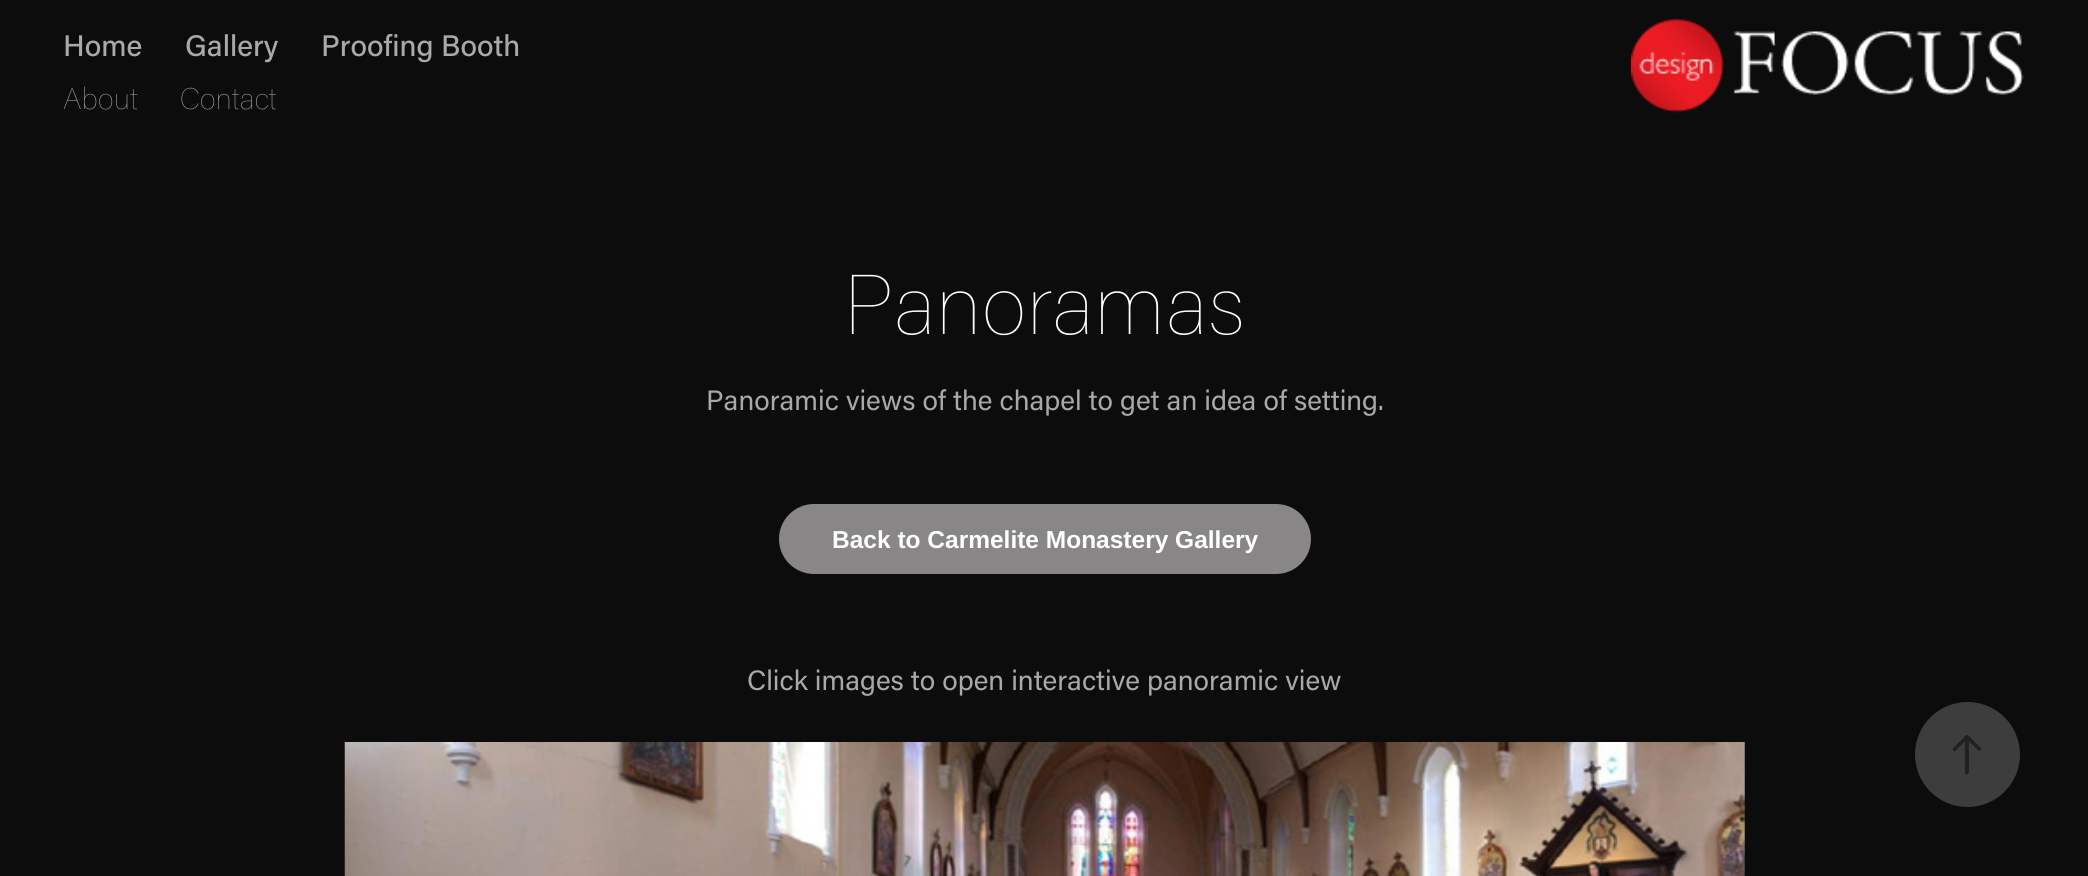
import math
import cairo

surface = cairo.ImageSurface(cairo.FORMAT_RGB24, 2088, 876)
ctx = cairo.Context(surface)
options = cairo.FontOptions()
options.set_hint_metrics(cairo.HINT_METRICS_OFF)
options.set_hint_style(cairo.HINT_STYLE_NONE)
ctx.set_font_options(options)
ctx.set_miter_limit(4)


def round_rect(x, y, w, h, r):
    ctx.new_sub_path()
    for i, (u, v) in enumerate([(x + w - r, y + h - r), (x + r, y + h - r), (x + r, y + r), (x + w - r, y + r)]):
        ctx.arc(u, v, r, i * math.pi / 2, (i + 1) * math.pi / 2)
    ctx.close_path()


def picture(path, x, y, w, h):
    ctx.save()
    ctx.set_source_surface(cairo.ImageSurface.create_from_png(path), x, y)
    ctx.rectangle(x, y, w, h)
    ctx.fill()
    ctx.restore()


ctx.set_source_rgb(0.047, 0.047, 0.047)
ctx.paint()
ctx.select_font_face("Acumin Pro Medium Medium")
ctx.set_font_size(29.75)
ctx.set_source_rgb(0.663, 0.663, 0.663)
ctx.move_to(63, 56)
ctx.show_text("Home")
ctx.move_to(185, 56)
ctx.show_text("Gallery")
ctx.move_to(321, 56)
ctx.show_text("Proofing Booth")
ctx.select_font_face("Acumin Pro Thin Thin")
ctx.move_to(63, 109)
ctx.show_text("About")
ctx.move_to(180, 109)
ctx.show_text("Contact")
picture("img1.png", 1631, 18, 393, 95)
ctx.set_font_size(84)
ctx.set_source_rgb(1, 1, 1)
ctx.move_to(844, 334)
ctx.show_text("Panoramas")
ctx.select_font_face("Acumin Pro")
ctx.set_font_size(28)
ctx.set_source_rgb(0.663, 0.663, 0.663)
ctx.move_to(706, 410)
ctx.show_text("Panoramic views of the chapel to get an idea of setting.")
ctx.set_source_rgb(0.533, 0.525, 0.525)
round_rect(779, 504, 532, 70, 35)
ctx.fill()
ctx.select_font_face("Liberation Sans", cairo.FONT_SLANT_NORMAL, cairo.FONT_WEIGHT_BOLD)
ctx.set_font_size(24.5)
ctx.set_source_rgb(1, 1, 1)
ctx.move_to(832, 548)
ctx.show_text("Back to Carmelite Monastery Gallery")
ctx.select_font_face("Acumin Pro")
ctx.set_font_size(28)
ctx.set_source_rgb(0.663, 0.663, 0.663)
ctx.move_to(747, 690)
ctx.show_text("Click images to open interactive panoramic view")
picture("img2.png", 344, 742, 1401, 134)
ctx.set_source_rgb(0.239, 0.239, 0.239)
ctx.arc(1967.5, 754.5, 52.5, 0, 2 * math.pi)
ctx.fill()
picture("img3.png", 1952, 735, 30, 40)
surface.write_to_png("page.png")
